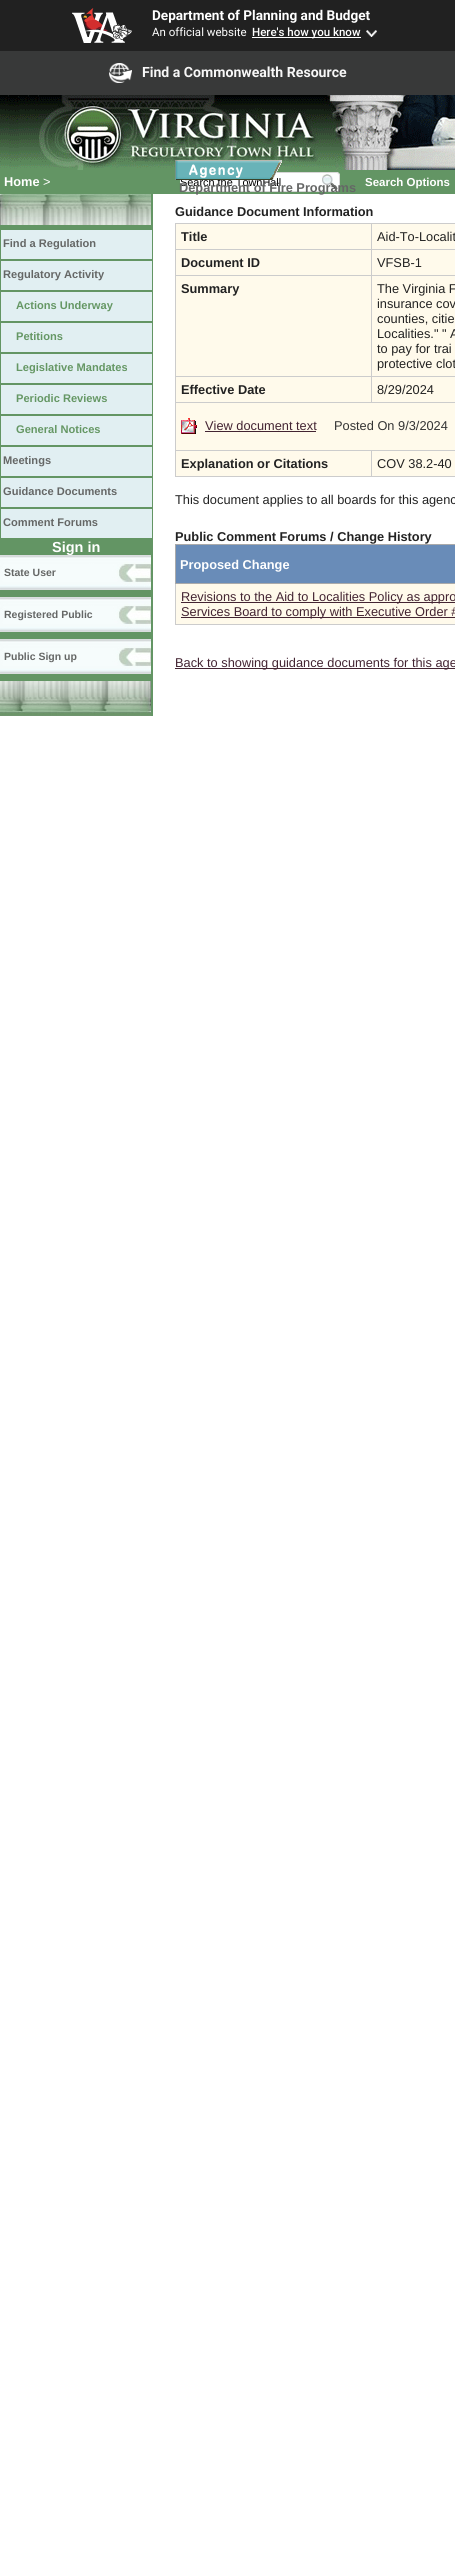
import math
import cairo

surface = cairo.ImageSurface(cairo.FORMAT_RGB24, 455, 2571)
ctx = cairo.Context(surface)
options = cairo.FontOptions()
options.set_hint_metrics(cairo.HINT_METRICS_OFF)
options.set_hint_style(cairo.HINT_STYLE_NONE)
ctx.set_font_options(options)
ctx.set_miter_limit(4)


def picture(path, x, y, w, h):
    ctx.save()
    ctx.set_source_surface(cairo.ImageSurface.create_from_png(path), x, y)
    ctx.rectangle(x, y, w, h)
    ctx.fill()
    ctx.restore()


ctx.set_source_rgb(1, 1, 1)
ctx.paint()
ctx.set_source_rgb(0.129, 0.129, 0.129)
ctx.rectangle(0, 0, 455, 51)
ctx.fill()
picture("img1.png", 72, 8, 60, 35)
ctx.select_font_face("Roboto", cairo.FONT_SLANT_NORMAL, cairo.FONT_WEIGHT_BOLD)
ctx.set_font_size(13.6)
ctx.set_source_rgb(1, 1, 1)
ctx.move_to(152, 20)
ctx.show_text("Department of Planning and Budget")
ctx.select_font_face("Roboto")
ctx.set_font_size(11.5)
ctx.move_to(152, 36)
ctx.show_text("An official website")
ctx.rectangle(252, 37, 109, 1)
ctx.fill()
ctx.select_font_face("Roboto Medium")
ctx.move_to(252, 36)
ctx.show_text("Here's how you know")
picture("img2.png", 366, 30, 11, 7)
ctx.set_source_rgb(0.22, 0.224, 0.224)
ctx.rectangle(0, 51, 455, 44)
ctx.fill()
picture("img3.png", 109, 63, 23, 20)
ctx.select_font_face("Roboto", cairo.FONT_SLANT_NORMAL, cairo.FONT_WEIGHT_BOLD)
ctx.set_font_size(14.1)
ctx.set_source_rgb(0.965, 0.965, 0.965)
ctx.move_to(142, 77)
ctx.show_text("Find a Commonwealth Resource")
picture("img4.png", 0, 95, 455, 75)
ctx.set_source_rgb(0.388, 0.584, 0.392)
ctx.rectangle(0, 170, 455, 24)
ctx.fill()
ctx.select_font_face("Liberation Sans", cairo.FONT_SLANT_NORMAL, cairo.FONT_WEIGHT_BOLD)
ctx.set_font_size(12.8)
ctx.set_source_rgb(1, 1, 1)
ctx.move_to(4, 186)
ctx.show_text("Home")
ctx.select_font_face("Liberation Sans")
ctx.move_to(43, 186)
ctx.show_text(">")
ctx.set_source_rgb(0.996, 1, 1)
ctx.rectangle(180, 173, 140, 18)
ctx.fill()
ctx.set_source_rgb(0.835, 0.835, 0.835)
ctx.rectangle(277, 172, 43, 1)
ctx.fill()
ctx.rectangle(180, 191, 140, 1)
ctx.fill()
ctx.set_font_size(10.9)
ctx.set_source_rgb(0, 0, 0)
ctx.move_to(180, 186)
ctx.show_text("Search the TownHall")
picture("img5.png", 320, 172, 20, 20)
ctx.select_font_face("Liberation Sans", cairo.FONT_SLANT_NORMAL, cairo.FONT_WEIGHT_BOLD)
ctx.set_font_size(11.5)
ctx.set_source_rgb(1, 1, 1)
ctx.move_to(365, 186)
ctx.show_text("Search Options")
ctx.set_source_rgb(0.388, 0.584, 0.392)
ctx.rectangle(0, 194, 153, 522)
ctx.fill()
picture("img6.png", 0, 194, 151, 31)
ctx.set_source_rgb(0.882, 0.937, 0.949)
ctx.rectangle(1, 230, 151, 29)
ctx.fill()
ctx.set_font_size(11.1)
ctx.set_source_rgb(0.396, 0.404, 0.4)
ctx.move_to(3, 247)
ctx.show_text("Find a Regulation")
ctx.set_source_rgb(0.882, 0.937, 0.949)
ctx.rectangle(1, 261, 151, 29)
ctx.fill()
ctx.set_source_rgb(0.396, 0.404, 0.4)
ctx.move_to(3, 278)
ctx.show_text("Regulatory Activity")
ctx.set_source_rgb(0.882, 0.937, 0.949)
ctx.rectangle(1, 292, 151, 29)
ctx.fill()
ctx.set_source_rgb(0.396, 0.592, 0.392)
ctx.move_to(16, 309)
ctx.show_text("Actions Underway")
ctx.set_source_rgb(0.882, 0.937, 0.949)
ctx.rectangle(1, 323, 151, 29)
ctx.fill()
ctx.set_source_rgb(0.396, 0.592, 0.392)
ctx.move_to(16, 340)
ctx.show_text("Petitions")
ctx.set_source_rgb(0.882, 0.937, 0.949)
ctx.rectangle(1, 354, 151, 29)
ctx.fill()
ctx.set_source_rgb(0.396, 0.592, 0.392)
ctx.move_to(16, 371)
ctx.show_text("Legislative Mandates")
ctx.set_source_rgb(0.882, 0.937, 0.949)
ctx.rectangle(1, 385, 151, 29)
ctx.fill()
ctx.set_source_rgb(0.396, 0.592, 0.392)
ctx.move_to(16, 402)
ctx.show_text("Periodic Reviews")
ctx.set_source_rgb(0.882, 0.937, 0.949)
ctx.rectangle(1, 416, 151, 29)
ctx.fill()
ctx.set_source_rgb(0.396, 0.592, 0.392)
ctx.move_to(16, 433)
ctx.show_text("General Notices")
ctx.set_source_rgb(0.882, 0.937, 0.949)
ctx.rectangle(1, 447, 151, 29)
ctx.fill()
ctx.set_source_rgb(0.396, 0.404, 0.4)
ctx.move_to(3, 464)
ctx.show_text("Meetings")
ctx.set_source_rgb(0.882, 0.937, 0.949)
ctx.rectangle(1, 478, 151, 29)
ctx.fill()
ctx.set_source_rgb(0.396, 0.404, 0.4)
ctx.move_to(3, 495)
ctx.show_text("Guidance Documents")
ctx.set_source_rgb(0.882, 0.937, 0.949)
ctx.rectangle(1, 509, 151, 29)
ctx.fill()
ctx.set_source_rgb(0.396, 0.404, 0.4)
ctx.move_to(3, 526)
ctx.show_text("Comment Forums")
picture("img7.png", 0, 555, 151, 35)
ctx.set_font_size(14.5)
ctx.set_source_rgb(1, 1, 1)
ctx.move_to(52, 552)
ctx.show_text("Sign in")
ctx.set_font_size(10.5)
ctx.set_source_rgb(0.396, 0.404, 0.4)
ctx.move_to(4, 576)
ctx.show_text("State User")
picture("img7.png", 0, 597, 151, 35)
ctx.move_to(4, 618)
ctx.show_text("Registered Public")
picture("img7.png", 0, 639, 151, 35)
ctx.move_to(4, 660)
ctx.show_text("Public Sign up")
picture("img8.png", 0, 681, 151, 35)
picture("img9.png", 175, 160, 107, 20)
ctx.set_font_size(12.8)
ctx.move_to(179, 192)
ctx.show_text("Department of Fire Programs")
ctx.set_source_rgb(0.133, 0.133, 0.133)
ctx.move_to(175, 216)
ctx.show_text("Guidance Document Information")
ctx.set_source_rgb(1, 0.98, 0.918)
ctx.rectangle(176, 224, 195, 25)
ctx.fill()
ctx.set_source_rgb(0.8, 0.8, 0.8)
ctx.rectangle(371, 223, 84, 1)
ctx.fill()
ctx.rectangle(371, 249, 84, 1)
ctx.fill()
ctx.rectangle(371, 275, 84, 1)
ctx.fill()
ctx.rectangle(371, 376, 84, 1)
ctx.fill()
ctx.rectangle(175, 402, 280, 1)
ctx.fill()
ctx.rectangle(371, 376, 1, 27)
ctx.fill()
ctx.rectangle(175, 376, 197, 1)
ctx.fill()
ctx.rectangle(371, 275, 1, 102)
ctx.fill()
ctx.rectangle(175, 275, 197, 1)
ctx.fill()
ctx.rectangle(371, 249, 1, 27)
ctx.fill()
ctx.rectangle(175, 249, 197, 1)
ctx.fill()
ctx.rectangle(371, 223, 1, 27)
ctx.fill()
ctx.rectangle(175, 223, 197, 1)
ctx.fill()
ctx.rectangle(371, 450, 84, 1)
ctx.fill()
ctx.rectangle(371, 476, 84, 1)
ctx.fill()
ctx.rectangle(371, 450, 1, 27)
ctx.fill()
ctx.rectangle(175, 450, 197, 1)
ctx.fill()
ctx.rectangle(175, 476, 197, 1)
ctx.fill()
ctx.rectangle(175, 450, 1, 27)
ctx.fill()
ctx.rectangle(175, 402, 1, 49)
ctx.fill()
ctx.rectangle(175, 376, 1, 27)
ctx.fill()
ctx.rectangle(175, 275, 1, 102)
ctx.fill()
ctx.rectangle(175, 249, 1, 27)
ctx.fill()
ctx.rectangle(175, 223, 1, 27)
ctx.fill()
ctx.set_source_rgb(0.133, 0.133, 0.133)
ctx.move_to(181, 241)
ctx.show_text("Title")
ctx.set_source_rgb(1, 0.98, 0.918)
ctx.rectangle(372, 224, 83, 25)
ctx.fill()
ctx.select_font_face("Liberation Sans")
ctx.set_source_rgb(0.133, 0.133, 0.133)
ctx.move_to(377, 241)
ctx.show_text("Aid-To-Localit")
ctx.set_source_rgb(1, 0.98, 0.918)
ctx.rectangle(176, 250, 195, 25)
ctx.fill()
ctx.select_font_face("Liberation Sans", cairo.FONT_SLANT_NORMAL, cairo.FONT_WEIGHT_BOLD)
ctx.set_source_rgb(0.133, 0.133, 0.133)
ctx.move_to(181, 267)
ctx.show_text("Document ID")
ctx.set_source_rgb(1, 0.98, 0.918)
ctx.rectangle(372, 250, 83, 25)
ctx.fill()
ctx.select_font_face("Liberation Sans")
ctx.set_source_rgb(0.133, 0.133, 0.133)
ctx.move_to(377, 267)
ctx.show_text("VFSB-1")
ctx.set_source_rgb(1, 0.98, 0.918)
ctx.rectangle(176, 276, 195, 100)
ctx.fill()
ctx.select_font_face("Liberation Sans", cairo.FONT_SLANT_NORMAL, cairo.FONT_WEIGHT_BOLD)
ctx.set_source_rgb(0.133, 0.133, 0.133)
ctx.move_to(181, 293)
ctx.show_text("Summary")
ctx.set_source_rgb(1, 0.98, 0.918)
ctx.rectangle(372, 276, 83, 100)
ctx.fill()
ctx.select_font_face("Liberation Sans")
ctx.set_source_rgb(0.133, 0.133, 0.133)
ctx.move_to(377, 293)
ctx.show_text("The Virginia F")
ctx.move_to(377, 308)
ctx.show_text("insurance cov")
ctx.move_to(377, 323)
ctx.show_text("counties, citie")
ctx.move_to(377, 338)
ctx.show_text("Localities.\" \" A")
ctx.move_to(377, 353)
ctx.show_text("to pay for trai")
ctx.move_to(377, 368)
ctx.show_text("protective clot")
ctx.set_source_rgb(1, 0.98, 0.918)
ctx.rectangle(176, 377, 195, 25)
ctx.fill()
ctx.select_font_face("Liberation Sans", cairo.FONT_SLANT_NORMAL, cairo.FONT_WEIGHT_BOLD)
ctx.set_source_rgb(0.133, 0.133, 0.133)
ctx.move_to(181, 394)
ctx.show_text("Effective Date")
ctx.set_source_rgb(1, 0.98, 0.918)
ctx.rectangle(372, 377, 83, 25)
ctx.fill()
ctx.select_font_face("Liberation Sans")
ctx.set_source_rgb(0.133, 0.133, 0.133)
ctx.move_to(377, 394)
ctx.show_text("8/29/2024")
ctx.set_source_rgb(1, 0.98, 0.918)
ctx.rectangle(176, 403, 279, 47)
ctx.fill()
picture("img10.png", 181, 418, 16, 16)
ctx.set_source_rgb(0.263, 0.141, 0.196)
ctx.move_to(205, 430)
ctx.show_text("View document text")
ctx.rectangle(205, 431, 111, 1)
ctx.fill()
ctx.set_source_rgb(0.2, 0.2, 0.2)
ctx.move_to(334, 430)
ctx.show_text("Posted On 9/3/2024")
ctx.set_source_rgb(1, 0.98, 0.918)
ctx.rectangle(176, 451, 195, 25)
ctx.fill()
ctx.select_font_face("Liberation Sans", cairo.FONT_SLANT_NORMAL, cairo.FONT_WEIGHT_BOLD)
ctx.set_source_rgb(0.133, 0.133, 0.133)
ctx.move_to(181, 468)
ctx.show_text("Explanation or Citations")
ctx.set_source_rgb(1, 0.98, 0.918)
ctx.rectangle(372, 451, 83, 25)
ctx.fill()
ctx.select_font_face("Liberation Sans")
ctx.set_source_rgb(0.133, 0.133, 0.133)
ctx.move_to(377, 468)
ctx.show_text("COV 38.2-40")
ctx.move_to(175, 504)
ctx.show_text("This document applies to all boards for this agenc")
ctx.select_font_face("Liberation Sans", cairo.FONT_SLANT_NORMAL, cairo.FONT_WEIGHT_BOLD)
ctx.move_to(175, 541)
ctx.show_text("Public Comment Forums / Change History")
ctx.set_source_rgb(0.412, 0.549, 0.722)
ctx.rectangle(176, 545, 279, 38)
ctx.fill()
ctx.set_source_rgb(0.667, 0.667, 0.667)
ctx.rectangle(175, 544, 280, 1)
ctx.fill()
ctx.set_source_rgb(0.8, 0.8, 0.8)
ctx.rectangle(175, 624, 280, 1)
ctx.fill()
ctx.rectangle(175, 583, 1, 42)
ctx.fill()
ctx.set_source_rgb(0.667, 0.667, 0.667)
ctx.rectangle(175, 583, 280, 1)
ctx.fill()
ctx.rectangle(175, 544, 1, 40)
ctx.fill()
ctx.set_source_rgb(1, 1, 1)
ctx.move_to(180, 569)
ctx.show_text("Proposed Change")
ctx.set_source_rgb(1, 0.98, 0.918)
ctx.rectangle(176, 584, 279, 40)
ctx.fill()
ctx.set_source_rgb(0.263, 0.141, 0.196)
ctx.rectangle(181, 602, 274, 1)
ctx.fill()
ctx.select_font_face("Liberation Sans")
ctx.move_to(181, 601)
ctx.show_text("Revisions to the Aid to Localities Policy as appro")
ctx.rectangle(181, 617, 274, 1)
ctx.fill()
ctx.move_to(181, 616)
ctx.show_text("Services Board to comply with Executive Order #")
ctx.rectangle(175, 668, 280, 1)
ctx.fill()
ctx.move_to(175, 667)
ctx.show_text("Back to showing guidance documents for this age")
surface.write_to_png("page.png")
